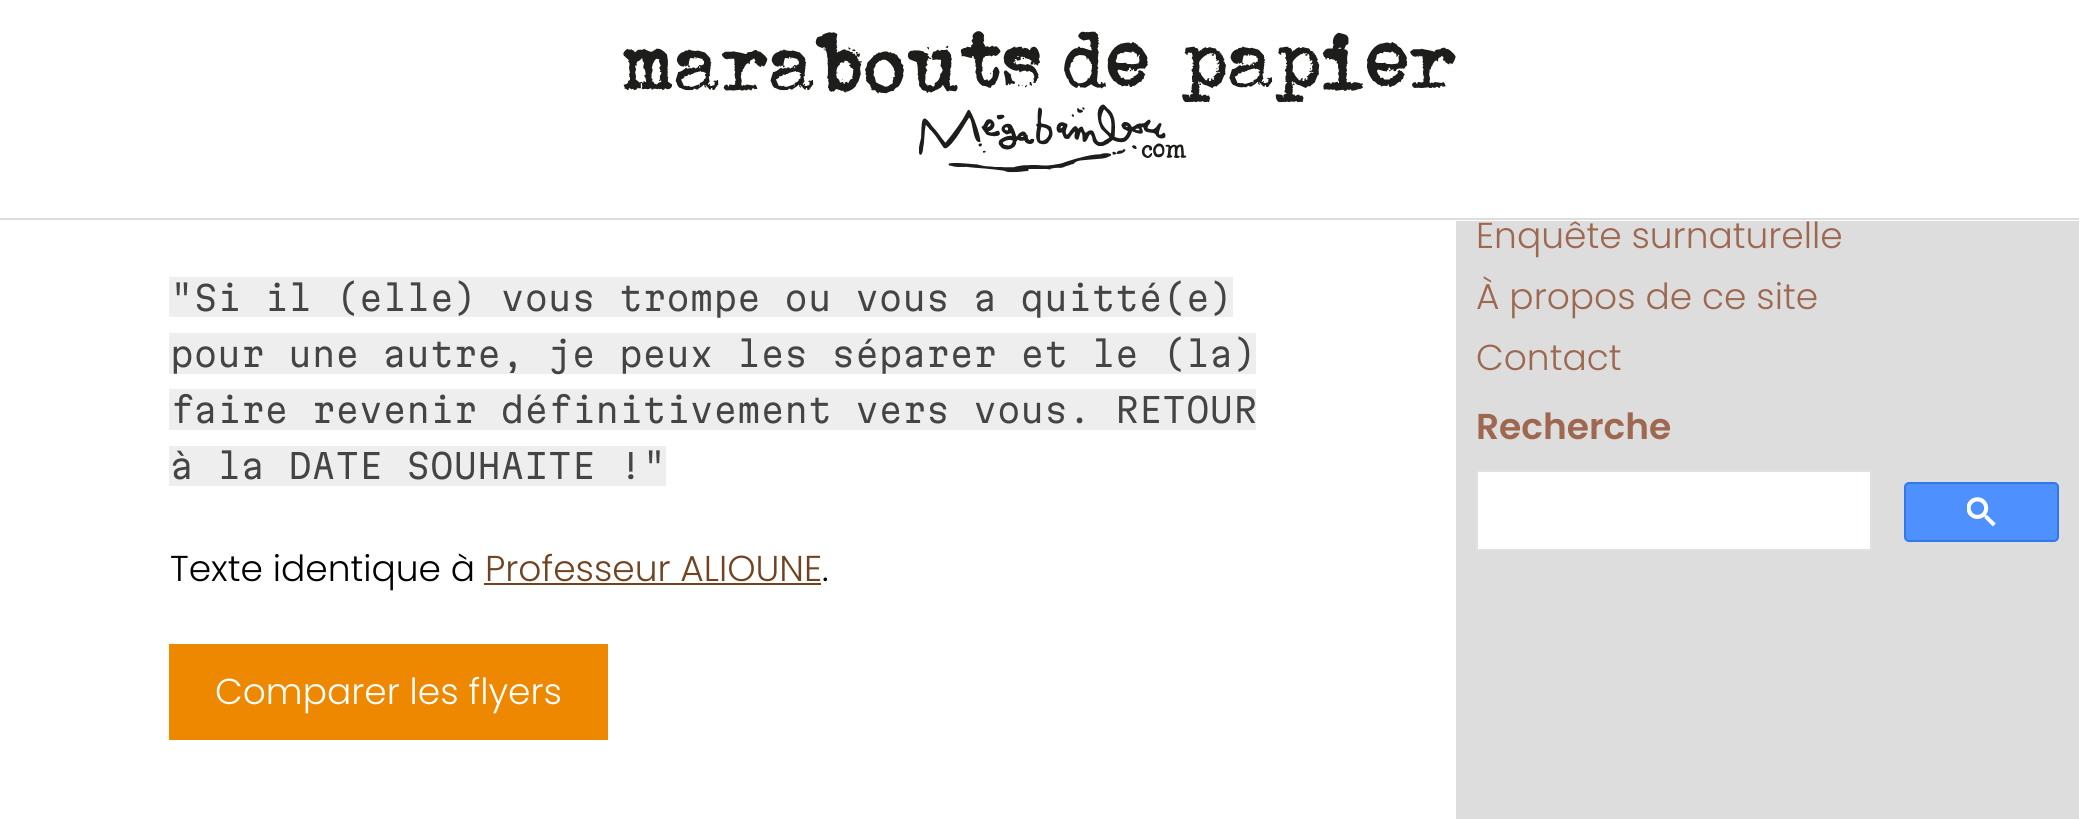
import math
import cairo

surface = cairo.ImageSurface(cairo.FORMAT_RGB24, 2079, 819)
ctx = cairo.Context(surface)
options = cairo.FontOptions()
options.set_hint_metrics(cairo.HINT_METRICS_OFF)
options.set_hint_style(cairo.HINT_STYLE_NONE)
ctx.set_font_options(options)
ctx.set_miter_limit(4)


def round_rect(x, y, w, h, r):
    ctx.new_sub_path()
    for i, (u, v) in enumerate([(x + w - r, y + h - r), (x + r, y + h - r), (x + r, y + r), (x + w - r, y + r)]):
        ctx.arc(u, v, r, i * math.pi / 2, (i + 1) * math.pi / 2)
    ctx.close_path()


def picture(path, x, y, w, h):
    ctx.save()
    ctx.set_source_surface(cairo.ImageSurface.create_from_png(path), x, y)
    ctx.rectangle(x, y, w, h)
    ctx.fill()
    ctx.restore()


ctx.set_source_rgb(1, 1, 1)
ctx.paint()
ctx.set_source_rgb(0.867, 0.867, 0.867)
ctx.rectangle(0, 218, 2079, 2)
ctx.fill()
picture("img1.png", 623, 31, 833, 142)
ctx.rectangle(1456, 221, 623, 598)
ctx.fill()
ctx.set_source_rgb(0.933, 0.933, 0.933)
ctx.rectangle(169, 277, 1064, 40)
ctx.fill()
ctx.select_font_face("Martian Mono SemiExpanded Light")
ctx.set_font_size(33.75)
ctx.set_source_rgb(0.267, 0.267, 0.267)
ctx.move_to(170, 311)
ctx.show_text("\"Si il (elle) vous trompe ou vous a quitté(e)")
ctx.set_source_rgb(0.933, 0.933, 0.933)
ctx.rectangle(169, 333, 1087, 41)
ctx.fill()
ctx.set_source_rgb(0.267, 0.267, 0.267)
ctx.move_to(170, 367)
ctx.show_text("pour une autre, je peux les séparer et le (la)")
ctx.set_source_rgb(0.933, 0.933, 0.933)
ctx.rectangle(169, 389, 1087, 41)
ctx.fill()
ctx.set_source_rgb(0.267, 0.267, 0.267)
ctx.move_to(170, 423)
ctx.show_text("faire revenir définitivement vers vous. RETOUR")
ctx.set_source_rgb(0.933, 0.933, 0.933)
ctx.rectangle(169, 446, 497, 40)
ctx.fill()
ctx.set_source_rgb(0.267, 0.267, 0.267)
ctx.move_to(170, 479)
ctx.show_text("à la DATE SOUHAITE !\"")
ctx.select_font_face("Poppins Light")
ctx.set_font_size(36)
ctx.set_source_rgb(0, 0, 0)
ctx.move_to(170, 581)
ctx.show_text("Texte identique à")
ctx.set_source_rgb(0.443, 0.263, 0.125)
ctx.move_to(485, 581)
ctx.show_text("Professeur ALIOUNE")
ctx.rectangle(484, 583, 337, 2)
ctx.fill()
ctx.set_source_rgb(0, 0, 0)
ctx.move_to(822, 581)
ctx.show_text(".")
ctx.set_source_rgb(0.933, 0.533, 0)
ctx.rectangle(169, 644, 439, 96)
ctx.fill()
ctx.set_source_rgb(1, 1, 1)
ctx.move_to(215, 704)
ctx.show_text("Comparer les flyers")
ctx.set_source_rgb(0.62, 0.408, 0.314)
ctx.move_to(1476, 248)
ctx.show_text("Enquête surnaturelle")
ctx.move_to(1476, 309)
ctx.show_text("À propos de ce site")
ctx.move_to(1476, 370)
ctx.show_text("Contact")
ctx.select_font_face("Poppins SemiBold")
ctx.move_to(1476, 439)
ctx.show_text("Recherche")
ctx.set_source_rgb(1, 1, 1)
ctx.rectangle(1477, 471, 394, 79)
ctx.fill_preserve()
ctx.set_source_rgb(0.875, 0.882, 0.898)
ctx.stroke()
ctx.set_source_rgb(0.302, 0.565, 0.996)
round_rect(1905, 483, 153, 58, 4)
ctx.fill_preserve()
ctx.set_source_rgb(0.188, 0.475, 0.929)
ctx.stroke()
picture("img2.png", 1967, 497, 29, 30)
surface.write_to_png("page.png")
